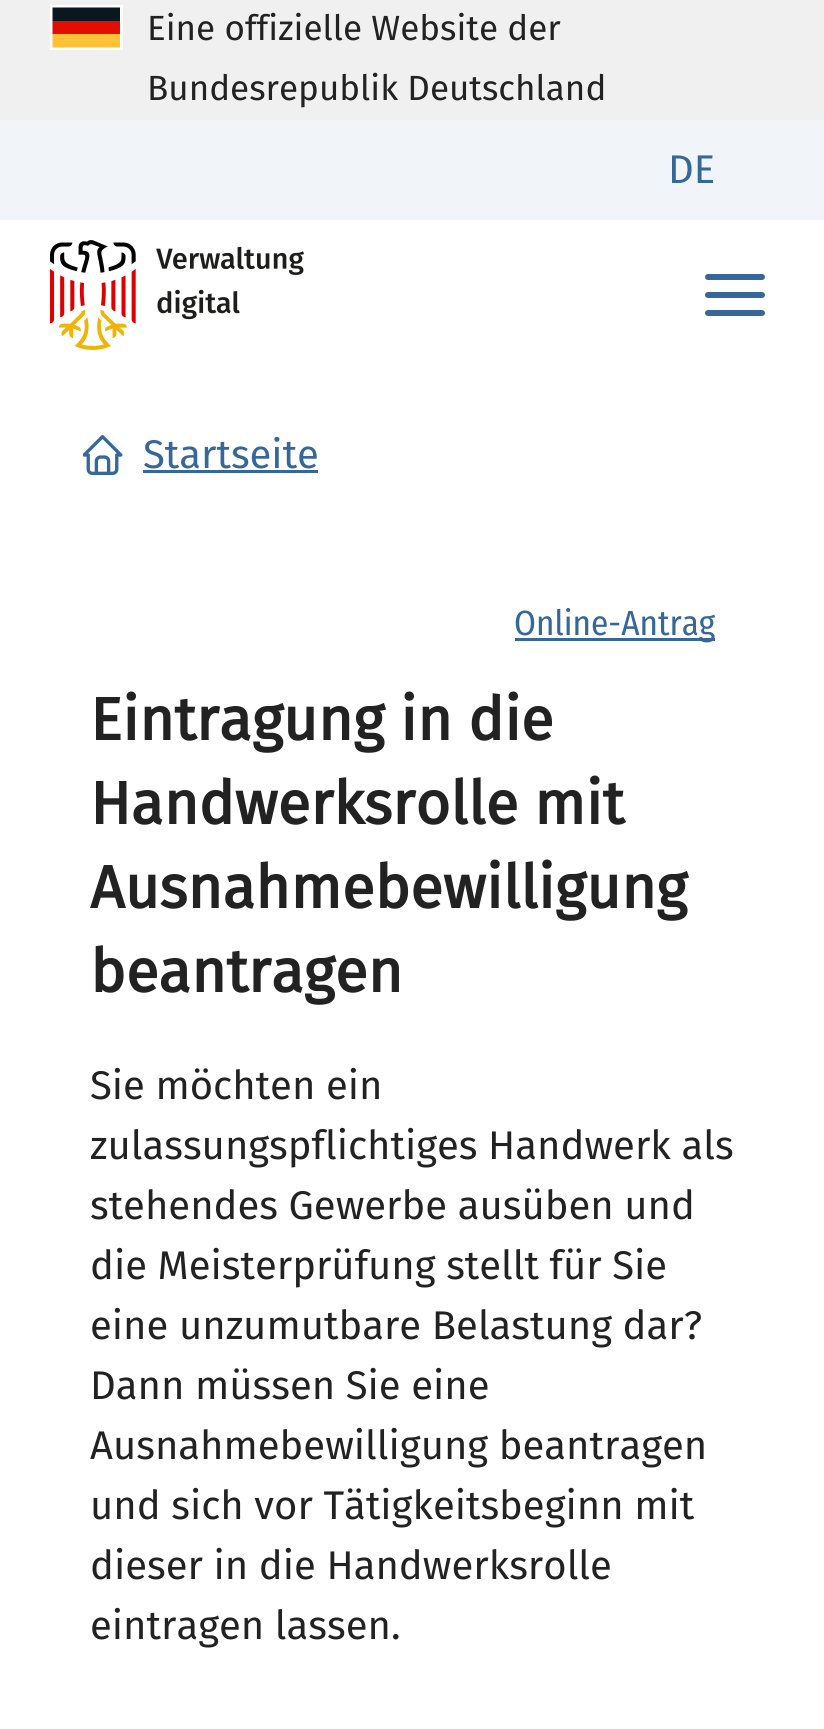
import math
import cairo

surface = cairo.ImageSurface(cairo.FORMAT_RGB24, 824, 1729)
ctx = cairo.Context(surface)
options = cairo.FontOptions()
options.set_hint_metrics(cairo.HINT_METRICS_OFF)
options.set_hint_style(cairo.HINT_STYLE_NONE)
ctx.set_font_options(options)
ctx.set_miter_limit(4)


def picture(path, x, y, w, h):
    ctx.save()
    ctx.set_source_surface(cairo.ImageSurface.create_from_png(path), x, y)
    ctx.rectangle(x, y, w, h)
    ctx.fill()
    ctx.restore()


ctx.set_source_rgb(1, 1, 1)
ctx.paint()
ctx.set_source_rgb(0.941, 0.941, 0.941)
ctx.rectangle(0, 0, 824, 120)
ctx.fill()
ctx.rectangle(51.5, 6.5, 70, 42)
ctx.set_source_rgb(1, 1, 1)
ctx.set_line_width(3)
ctx.stroke()
picture("img1.png", 52, 7, 68, 41)
ctx.select_font_face("Fira Sans")
ctx.set_font_size(35)
ctx.set_source_rgb(0.133, 0.133, 0.133)
ctx.move_to(147, 40)
ctx.show_text("Eine offizielle Website der")
ctx.move_to(147, 100)
ctx.show_text("Bundesrepublik Deutschland")
ctx.set_source_rgb(0.945, 0.957, 0.973)
ctx.rectangle(0, 120, 824, 100)
ctx.fill()
ctx.set_font_size(40)
ctx.set_source_rgb(0.208, 0.404, 0.6)
ctx.move_to(668, 183)
ctx.show_text("DE")
picture("img2.png", 50, 240, 254, 110)
picture("img3.png", 705, 274, 60, 42)
picture("img4.png", 83, 435, 40, 40)
ctx.move_to(143, 468)
ctx.show_text("Startseite")
ctx.rectangle(143, 470, 175, 3)
ctx.fill()
ctx.rectangle(515, 638, 200, 3)
ctx.fill()
ctx.select_font_face("Fira Sans Condensed")
ctx.set_font_size(35)
ctx.move_to(514, 635)
ctx.show_text("Online-Antrag")
ctx.select_font_face("Fira Sans", cairo.FONT_SLANT_NORMAL, cairo.FONT_WEIGHT_BOLD)
ctx.set_font_size(60)
ctx.set_source_rgb(0.133, 0.133, 0.133)
ctx.move_to(90, 740)
ctx.show_text("Eintragung in die")
ctx.move_to(90, 824)
ctx.show_text("Handwerksrolle mit")
ctx.move_to(90, 908)
ctx.show_text("Ausnahmebewilligung")
ctx.move_to(90, 992)
ctx.show_text("beantragen")
ctx.select_font_face("Fira Sans")
ctx.set_font_size(40)
ctx.move_to(90, 1099)
ctx.show_text("Sie möchten ein")
ctx.move_to(90, 1159)
ctx.show_text("zulassungspflichtiges Handwerk als")
ctx.move_to(90, 1219)
ctx.show_text("stehendes Gewerbe ausüben und")
ctx.move_to(90, 1279)
ctx.show_text("die Meisterprüfung stellt für Sie")
ctx.move_to(90, 1339)
ctx.show_text("eine unzumutbare Belastung dar?")
ctx.move_to(90, 1399)
ctx.show_text("Dann müssen Sie eine")
ctx.move_to(90, 1459)
ctx.show_text("Ausnahmebewilligung beantragen")
ctx.move_to(90, 1519)
ctx.show_text("und sich vor Tätigkeitsbeginn mit")
ctx.move_to(90, 1579)
ctx.show_text("dieser in die Handwerksrolle")
ctx.move_to(90, 1639)
ctx.show_text("eintragen lassen.")
surface.write_to_png("page.png")
